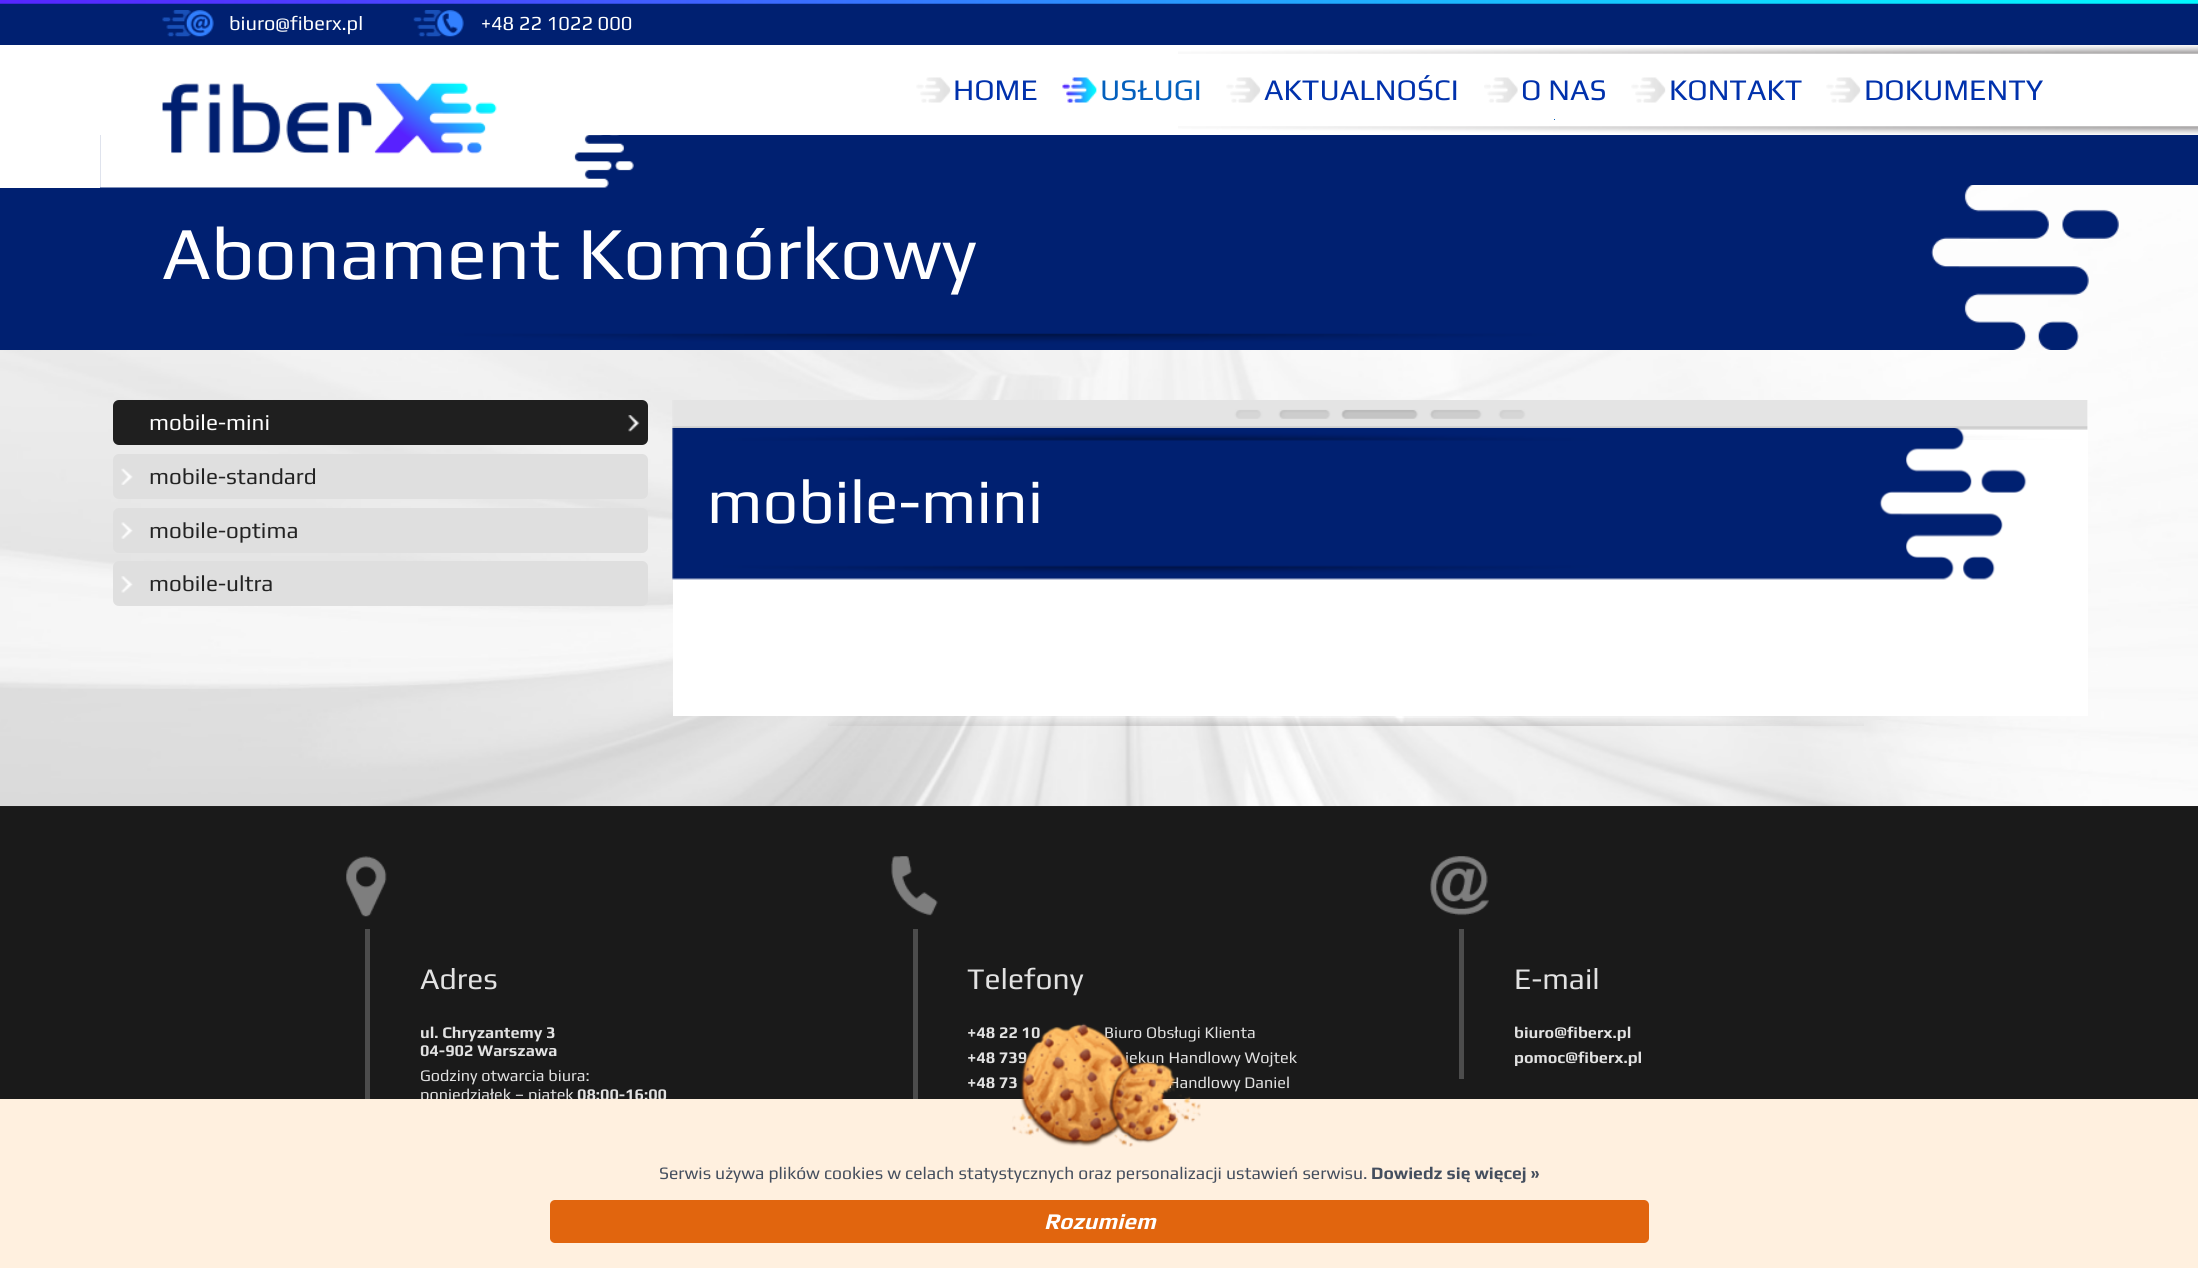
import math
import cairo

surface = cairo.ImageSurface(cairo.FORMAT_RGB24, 2198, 1268)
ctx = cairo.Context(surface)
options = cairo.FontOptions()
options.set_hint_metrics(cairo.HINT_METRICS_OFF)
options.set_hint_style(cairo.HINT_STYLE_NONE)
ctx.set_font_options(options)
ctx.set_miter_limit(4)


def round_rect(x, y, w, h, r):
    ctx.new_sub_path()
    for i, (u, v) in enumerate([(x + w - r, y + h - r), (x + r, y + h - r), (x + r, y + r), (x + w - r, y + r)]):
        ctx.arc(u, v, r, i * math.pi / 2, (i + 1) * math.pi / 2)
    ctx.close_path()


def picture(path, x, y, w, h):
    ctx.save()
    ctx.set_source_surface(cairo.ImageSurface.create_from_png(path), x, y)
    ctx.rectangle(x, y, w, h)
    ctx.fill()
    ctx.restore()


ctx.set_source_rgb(1, 1, 1)
ctx.paint()
picture("img1.png", 0, 185, 2198, 621)
ctx.set_source_rgb(0, 0.125, 0.443)
ctx.rectangle(0, 3, 2198, 182)
ctx.fill()
picture("img2.png", 0, 0, 2198, 4)
picture("img3.png", 162, 10, 52, 27)
ctx.select_font_face("Play")
ctx.set_font_size(20)
ctx.set_source_rgb(1, 1, 1)
ctx.move_to(229, 30)
ctx.show_text("biuro@fiberx.pl")
picture("img4.png", 413, 10, 51, 27)
ctx.move_to(481, 30)
ctx.show_text("+48 22 1022 000")
ctx.rectangle(0, 45, 2198, 90)
ctx.fill()
picture("img5.png", 1178, 45, 1020, 90)
picture("img11.png", 0, 185, 2119, 165)
ctx.rectangle(0, 135, 100, 53)
ctx.fill()
picture("img6.png", 100, 82, 534, 106)
picture("img7.png", 916, 77, 35, 26)
ctx.set_font_size(30)
ctx.set_source_rgb(0, 0.192, 0.675)
ctx.move_to(953, 100)
ctx.show_text("HOME")
picture("img8.png", 1062, 77, 35, 26)
ctx.set_source_rgb(0.016, 0.376, 0.741)
ctx.move_to(1100, 100)
ctx.show_text("USŁUGI")
picture("img9.png", 1226, 77, 35, 26)
ctx.set_source_rgb(0, 0.192, 0.675)
ctx.move_to(1264, 100)
ctx.show_text("AKTUALNOŚCI")
picture("img10.png", 1484, 77, 34, 26)
ctx.move_to(1521, 100)
ctx.show_text("O NAS")
ctx.set_source_rgb(0.016, 0.376, 0.741)
ctx.rectangle(1554, 119, 1, 1)
ctx.fill()
picture("img7.png", 1631, 77, 35, 26)
ctx.set_source_rgb(0, 0.192, 0.675)
ctx.move_to(1669, 100)
ctx.show_text("KONTAKT")
picture("img9.png", 1826, 77, 35, 26)
ctx.move_to(1864, 100)
ctx.show_text("DOKUMENTY")
ctx.set_font_size(75)
ctx.set_source_rgb(1, 1, 1)
ctx.move_to(162, 279)
ctx.show_text("Abonament Komórkowy")
ctx.set_source_rgb(0.122, 0.122, 0.122)
round_rect(113, 400, 535, 45, 6)
ctx.fill()
picture("img12.png", 628, 415, 12, 17)
ctx.set_font_size(22.5)
ctx.set_source_rgb(1, 1, 1)
ctx.move_to(149, 430)
ctx.show_text("mobile-mini")
ctx.set_source_rgb(0.875, 0.875, 0.875)
round_rect(113, 454, 535, 45, 6)
ctx.fill()
picture("img13.png", 121, 468, 12, 17)
ctx.set_source_rgb(0.137, 0.137, 0.137)
ctx.move_to(149, 484)
ctx.show_text("mobile-standard")
ctx.set_source_rgb(0.875, 0.875, 0.875)
round_rect(113, 508, 535, 45, 6)
ctx.fill()
picture("img14.png", 121, 522, 12, 17)
ctx.set_source_rgb(0.137, 0.137, 0.137)
ctx.move_to(149, 538)
ctx.show_text("mobile-optima")
ctx.set_source_rgb(0.875, 0.875, 0.875)
round_rect(113, 561, 535, 45, 6)
ctx.fill()
picture("img15.png", 121, 576, 12, 17)
ctx.set_source_rgb(0.137, 0.137, 0.137)
ctx.move_to(149, 591)
ctx.show_text("mobile-ultra")
ctx.set_source_rgb(1, 1, 1)
ctx.rectangle(673, 400, 1415, 316)
ctx.fill()
picture("img16.png", 672, 400, 1416, 40)
picture("img17.png", 672, 428, 1355, 152)
ctx.set_font_size(62.5)
ctx.move_to(707, 523)
ctx.show_text("mobile-mini")
picture("img18.png", 828, 718, 1036, 8)
ctx.set_source_rgb(0.122, 0.122, 0.122)
ctx.rectangle(0, 806, 2198, 1)
ctx.fill()
ctx.set_source_rgb(0.102, 0.102, 0.102)
ctx.rectangle(0, 807, 2198, 292)
ctx.fill()
picture("img19.png", 346, 856, 41, 61)
ctx.set_source_rgb(0.298, 0.298, 0.298)
ctx.rectangle(365, 929, 5, 170)
ctx.fill()
ctx.set_font_size(30)
ctx.set_source_rgb(0.886, 0.886, 0.886)
ctx.move_to(420, 989)
ctx.show_text("Adres")
ctx.select_font_face("Play", cairo.FONT_SLANT_NORMAL, cairo.FONT_WEIGHT_BOLD)
ctx.set_font_size(16.25)
ctx.move_to(420, 1038)
ctx.show_text("ul. Chryzantemy 3")
ctx.move_to(420, 1056)
ctx.show_text("04-902 Warszawa")
ctx.select_font_face("Play")
ctx.move_to(420, 1081)
ctx.show_text("Godziny otwarcia biura:")
ctx.move_to(420, 1100)
ctx.show_text("poniedziałek – piątek")
ctx.select_font_face("Play", cairo.FONT_SLANT_NORMAL, cairo.FONT_WEIGHT_BOLD)
ctx.move_to(577, 1100)
ctx.show_text("08:00-16:00")
picture("img20.png", 891, 856, 47, 60)
ctx.set_source_rgb(0.298, 0.298, 0.298)
ctx.rectangle(913, 929, 5, 170)
ctx.fill()
ctx.select_font_face("Play")
ctx.set_font_size(30)
ctx.set_source_rgb(0.886, 0.886, 0.886)
ctx.move_to(967, 989)
ctx.show_text("Telefony")
ctx.select_font_face("Play", cairo.FONT_SLANT_NORMAL, cairo.FONT_WEIGHT_BOLD)
ctx.set_font_size(16.25)
ctx.move_to(967, 1038)
ctx.show_text("+48 22 10")
ctx.select_font_face("Play")
ctx.move_to(1104, 1038)
ctx.show_text("Biuro Obsługi Klienta")
ctx.select_font_face("Play", cairo.FONT_SLANT_NORMAL, cairo.FONT_WEIGHT_BOLD)
ctx.move_to(967, 1063)
ctx.show_text("+48 739")
ctx.select_font_face("Play")
ctx.move_to(1125, 1063)
ctx.show_text("iekun Handlowy Wojtek")
ctx.select_font_face("Play", cairo.FONT_SLANT_NORMAL, cairo.FONT_WEIGHT_BOLD)
ctx.move_to(967, 1088)
ctx.show_text("+48 73")
ctx.select_font_face("Play")
ctx.move_to(1168, 1088)
ctx.show_text("Handlowy Daniel")
picture("img21.png", 1430, 856, 59, 60)
ctx.set_source_rgb(0.298, 0.298, 0.298)
ctx.rectangle(1459, 929, 5, 150)
ctx.fill()
ctx.set_font_size(30)
ctx.set_source_rgb(0.886, 0.886, 0.886)
ctx.move_to(1514, 989)
ctx.show_text("E-mail")
ctx.save()
ctx.rectangle(1514, 1023, 117, 18)
ctx.clip()
ctx.select_font_face("Play", cairo.FONT_SLANT_NORMAL, cairo.FONT_WEIGHT_BOLD)
ctx.set_font_size(16.25)
ctx.move_to(1514, 1038)
ctx.show_text("biuro@fiberx.pl")
ctx.restore()
ctx.save()
ctx.rectangle(1514, 1048, 129, 18)
ctx.clip()
ctx.select_font_face("Play", cairo.FONT_SLANT_NORMAL, cairo.FONT_WEIGHT_BOLD)
ctx.set_font_size(16.25)
ctx.move_to(1514, 1063)
ctx.show_text("pomoc@fiberx.pl")
ctx.restore()
ctx.set_source_rgb(1, 0.941, 0.875)
ctx.rectangle(0, 1099, 2198, 169)
ctx.fill()
picture("img22.png", 1012, 1023, 189, 124)
ctx.set_font_size(17.5)
ctx.set_source_rgb(0.267, 0.306, 0.369)
ctx.move_to(659, 1179)
ctx.show_text("Serwis używa plików cookies w celach statystycznych oraz personalizacji ustawień serwisu.")
ctx.select_font_face("Play", cairo.FONT_SLANT_NORMAL, cairo.FONT_WEIGHT_BOLD)
ctx.move_to(1371, 1179)
ctx.show_text("Dowiedz się więcej »")
ctx.set_source_rgb(0.882, 0.396, 0.055)
round_rect(550, 1200, 1099, 43, 5)
ctx.fill()
ctx.select_font_face("Play", cairo.FONT_SLANT_ITALIC, cairo.FONT_WEIGHT_BOLD)
ctx.set_font_size(22.5)
ctx.set_source_rgb(1, 1, 1)
ctx.move_to(1044, 1229)
ctx.show_text("Rozumiem")
surface.write_to_png("page.png")
